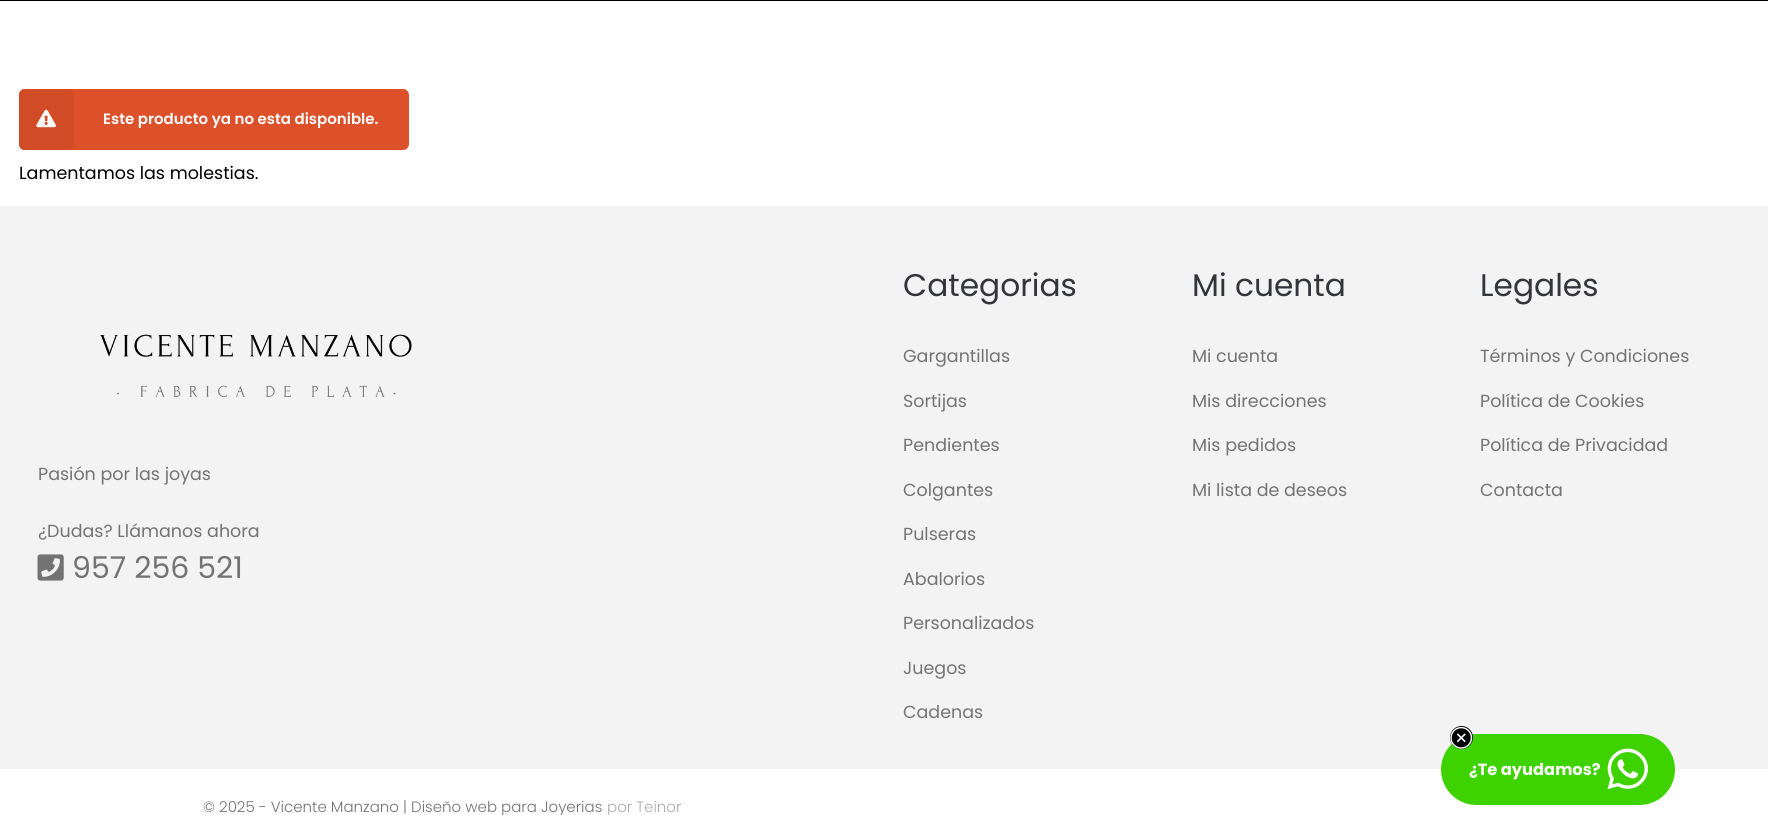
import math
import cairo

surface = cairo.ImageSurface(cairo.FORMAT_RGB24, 1768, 815)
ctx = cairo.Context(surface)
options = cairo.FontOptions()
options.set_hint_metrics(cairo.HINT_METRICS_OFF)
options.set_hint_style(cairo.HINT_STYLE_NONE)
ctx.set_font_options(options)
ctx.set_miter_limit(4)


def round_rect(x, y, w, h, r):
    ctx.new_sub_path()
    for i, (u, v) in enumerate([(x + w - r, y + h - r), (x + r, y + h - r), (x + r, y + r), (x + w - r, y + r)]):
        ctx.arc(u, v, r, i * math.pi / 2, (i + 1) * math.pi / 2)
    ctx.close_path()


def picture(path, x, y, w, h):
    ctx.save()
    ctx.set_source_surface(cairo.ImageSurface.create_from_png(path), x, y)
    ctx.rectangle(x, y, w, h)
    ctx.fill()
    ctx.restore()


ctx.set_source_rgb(1, 1, 1)
ctx.paint()
ctx.set_source_rgb(0, 0, 0)
ctx.rectangle(0, 0, 1768, 1)
ctx.fill()
ctx.set_source_rgb(0.867, 0.318, 0.165)
round_rect(19, 89, 390, 61, 6)
ctx.fill()
ctx.set_source_rgb(0.82, 0.298, 0.149)
round_rect(19, 89, 55, 61, 6)
ctx.fill()
picture("img1.png", 36, 109, 20, 19)
ctx.select_font_face("Poppins SemiBold")
ctx.set_font_size(15)
ctx.set_source_rgb(1, 1, 1)
ctx.move_to(103, 124)
ctx.show_text("Este producto ya no esta disponible.")
ctx.select_font_face("Poppins")
ctx.set_font_size(17.5)
ctx.set_source_rgb(0, 0, 0)
ctx.move_to(19, 179)
ctx.show_text("Lamentamos las molestias.")
ctx.set_source_rgb(0.953, 0.953, 0.953)
ctx.rectangle(0, 206, 1768, 563)
ctx.fill()
ctx.set_source_rgb(0.243, 0.824, 0)
round_rect(1441, 734, 234, 71, 35.5)
ctx.fill()
ctx.set_source_rgb(0, 0, 0)
ctx.arc(1461.5, 737.5, 11.5, 0, 2 * math.pi)
ctx.fill()
picture("img2.png", 1450, 726, 23, 23)
ctx.select_font_face("Poppins", cairo.FONT_SLANT_NORMAL, cairo.FONT_WEIGHT_BOLD)
ctx.set_font_size(16.25)
ctx.set_source_rgb(1, 1, 1)
ctx.move_to(1469, 775)
ctx.show_text("¿Te ayudamos?")
picture("img3.png", 1607, 748, 41, 42)
ctx.select_font_face("Poppins")
ctx.set_font_size(31.25)
ctx.set_source_rgb(0.204, 0.208, 0.22)
ctx.move_to(903, 296)
ctx.show_text("Categorias")
ctx.set_font_size(17.5)
ctx.set_source_rgb(0.451, 0.451, 0.451)
ctx.move_to(903, 362)
ctx.show_text("Gargantillas")
ctx.move_to(903, 407)
ctx.show_text("Sortijas")
ctx.move_to(903, 451)
ctx.show_text("Pendientes")
ctx.move_to(903, 496)
ctx.show_text("Colgantes")
ctx.move_to(903, 540)
ctx.show_text("Pulseras")
ctx.move_to(903, 585)
ctx.show_text("Abalorios")
ctx.move_to(903, 629)
ctx.show_text("Personalizados")
ctx.move_to(903, 674)
ctx.show_text("Juegos")
ctx.move_to(903, 718)
ctx.show_text("Cadenas")
ctx.set_font_size(31.25)
ctx.set_source_rgb(0.204, 0.208, 0.22)
ctx.move_to(1192, 296)
ctx.show_text("Mi cuenta")
ctx.set_font_size(17.5)
ctx.set_source_rgb(0.451, 0.451, 0.451)
ctx.move_to(1192, 362)
ctx.show_text("Mi cuenta")
ctx.move_to(1192, 407)
ctx.show_text("Mis direcciones")
ctx.move_to(1192, 451)
ctx.show_text("Mis pedidos")
ctx.move_to(1192, 496)
ctx.show_text("Mi lista de deseos")
ctx.set_font_size(31.25)
ctx.set_source_rgb(0.204, 0.208, 0.22)
ctx.move_to(1480, 296)
ctx.show_text("Legales")
ctx.set_font_size(17.5)
ctx.set_source_rgb(0.451, 0.451, 0.451)
ctx.move_to(1480, 362)
ctx.show_text("Términos y Condiciones")
ctx.move_to(1480, 407)
ctx.show_text("Política de Cookies")
ctx.move_to(1480, 451)
ctx.show_text("Política de Privacidad")
ctx.move_to(1480, 496)
ctx.show_text("Contacta")
picture("img4.png", 100, 334, 312, 63)
ctx.move_to(38, 480)
ctx.show_text("Pasión por las joyas")
ctx.move_to(38, 537)
ctx.show_text("¿Dudas? Llámanos ahora")
picture("img5.png", 37, 554, 27, 27)
ctx.set_font_size(30)
ctx.move_to(72, 578)
ctx.show_text("957 256 521")
ctx.select_font_face("Poppins Light")
ctx.set_font_size(15)
ctx.move_to(203, 812)
ctx.show_text("© 2025 - Vicente Manzano | Diseño web para Joyerias")
ctx.set_source_rgb(0.671, 0.671, 0.671)
ctx.move_to(607, 812)
ctx.show_text("por Teinor")
surface.write_to_png("page.png")
